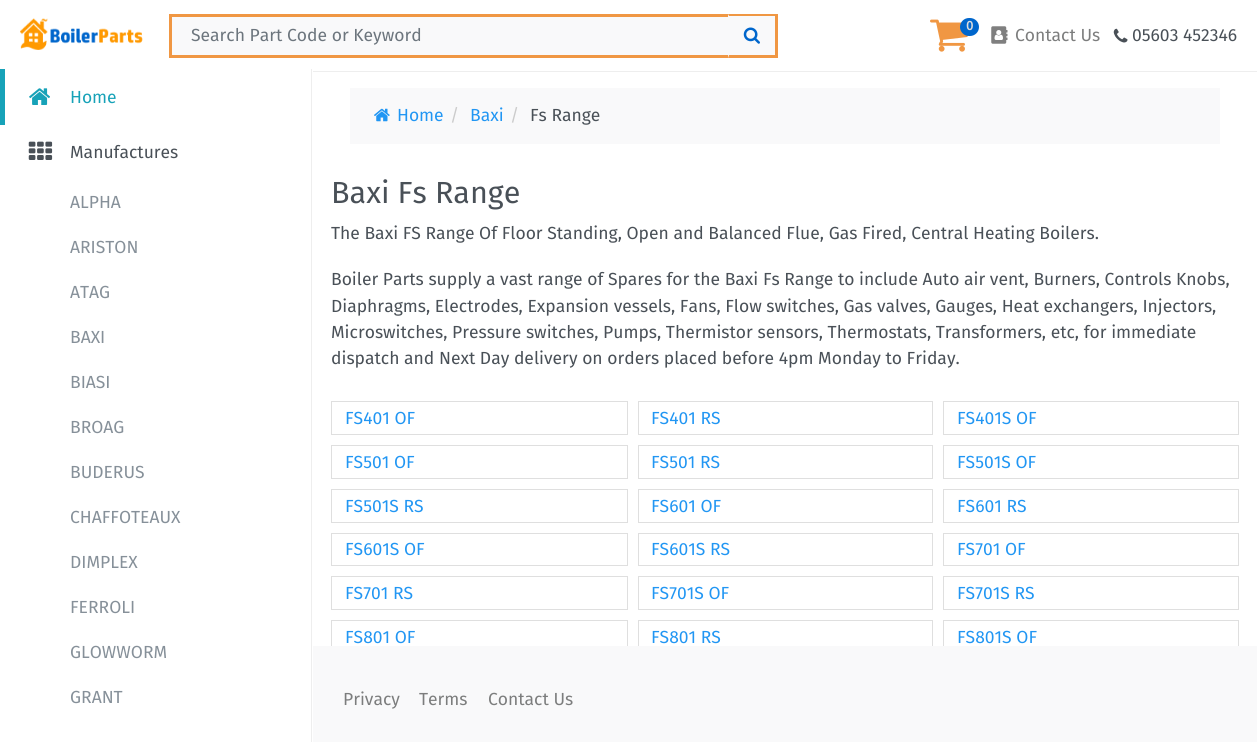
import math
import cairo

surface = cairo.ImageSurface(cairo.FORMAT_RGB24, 1257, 742)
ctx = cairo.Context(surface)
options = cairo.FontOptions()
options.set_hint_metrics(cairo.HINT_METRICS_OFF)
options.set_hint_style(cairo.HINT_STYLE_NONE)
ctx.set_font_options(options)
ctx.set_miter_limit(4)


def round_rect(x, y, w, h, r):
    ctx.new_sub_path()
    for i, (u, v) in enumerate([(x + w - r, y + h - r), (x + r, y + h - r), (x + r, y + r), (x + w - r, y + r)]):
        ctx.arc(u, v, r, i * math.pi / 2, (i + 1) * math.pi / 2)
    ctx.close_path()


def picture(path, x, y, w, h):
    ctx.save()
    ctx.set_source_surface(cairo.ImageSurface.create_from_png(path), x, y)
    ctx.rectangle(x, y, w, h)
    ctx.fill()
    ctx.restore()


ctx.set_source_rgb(1, 1, 1)
ctx.paint()
ctx.set_source_rgb(0.933, 0.933, 0.933)
ctx.rectangle(313, 71, 944, 1)
ctx.fill()
picture("img1.png", 20, 18, 123, 32)
ctx.set_source_rgb(0.973, 0.976, 0.98)
ctx.rectangle(172, 17, 556, 38)
ctx.fill()
ctx.rectangle(170.5, 15.5, 606, 41)
ctx.set_source_rgb(0.941, 0.592, 0.263)
ctx.set_line_width(3)
ctx.stroke()
ctx.select_font_face("Fira Sans")
ctx.set_font_size(17.5)
ctx.set_source_rgb(0.424, 0.459, 0.49)
ctx.move_to(191, 41)
ctx.show_text("Search Part Code or Keyword")
ctx.set_source_rgb(0.973, 0.976, 0.98)
ctx.rectangle(729, 16, 46, 39)
ctx.fill()
ctx.new_path()
ctx.move_to(728, 58)
ctx.line_to(728, 14)
ctx.line_to(729, 16)
ctx.line_to(729, 55)
ctx.close_path()
ctx.fill()
picture("img2.png", 743, 27, 17, 17)
picture("img3.png", 930, 19, 38, 33)
ctx.set_source_rgb(0, 0.4, 0.8)
round_rect(960, 18, 19, 18, 9)
ctx.fill()
ctx.select_font_face("Fira Sans", cairo.FONT_SLANT_NORMAL, cairo.FONT_WEIGHT_BOLD)
ctx.set_font_size(13)
ctx.set_source_rgb(0.863, 0.863, 0.863)
ctx.move_to(966, 30)
ctx.show_text("0")
picture("img4.png", 991, 26, 17, 18)
ctx.select_font_face("Fira Sans")
ctx.set_font_size(17.5)
ctx.set_source_rgb(0.486, 0.49, 0.49)
ctx.move_to(1015, 41)
ctx.show_text("Contact Us")
picture("img5.png", 1113, 28, 15, 15)
ctx.set_source_rgb(0.286, 0.314, 0.341)
ctx.move_to(1132, 41)
ctx.show_text("05603 452346")
ctx.set_source_rgb(0.933, 0.933, 0.933)
ctx.rectangle(311, 69, 1, 673)
ctx.fill()
ctx.set_source_rgb(0.09, 0.635, 0.722)
ctx.rectangle(0, 69, 5, 56)
ctx.fill()
picture("img6.png", 29, 88, 21, 17)
ctx.move_to(70, 103)
ctx.show_text("Home")
picture("img7.png", 28, 141, 25, 19)
ctx.set_source_rgb(0.286, 0.314, 0.341)
ctx.move_to(70, 158)
ctx.show_text("Manufactures")
ctx.set_source_rgb(0.525, 0.565, 0.6)
ctx.move_to(70, 208)
ctx.show_text("ALPHA")
ctx.move_to(70, 253)
ctx.show_text("ARISTON")
ctx.move_to(70, 298)
ctx.show_text("ATAG")
ctx.move_to(70, 343)
ctx.show_text("BAXI")
ctx.move_to(70, 388)
ctx.show_text("BIASI")
ctx.move_to(70, 433)
ctx.show_text("BROAG")
ctx.move_to(70, 478)
ctx.show_text("BUDERUS")
ctx.move_to(70, 523)
ctx.show_text("CHAFFOTEAUX")
ctx.move_to(70, 568)
ctx.show_text("DIMPLEX")
ctx.move_to(70, 613)
ctx.show_text("FERROLI")
ctx.move_to(70, 658)
ctx.show_text("GLOWWORM")
ctx.move_to(70, 703)
ctx.show_text("GRANT")
ctx.set_source_rgb(0.973, 0.976, 0.98)
ctx.rectangle(350, 88, 870, 56)
ctx.fill()
picture("img8.png", 374, 108, 16, 14)
ctx.set_source_rgb(0.129, 0.588, 0.953)
ctx.move_to(397, 121)
ctx.show_text("Home")
ctx.set_source_rgb(0.8, 0.8, 0.8)
ctx.move_to(450, 121)
ctx.show_text("/")
ctx.set_source_rgb(0.129, 0.588, 0.953)
ctx.move_to(470, 121)
ctx.show_text("Baxi")
ctx.set_source_rgb(0.8, 0.8, 0.8)
ctx.move_to(510, 121)
ctx.show_text("/")
ctx.set_source_rgb(0.286, 0.314, 0.341)
ctx.move_to(530, 121)
ctx.show_text("Fs Range")
ctx.set_font_size(30.5)
ctx.move_to(331, 203)
ctx.show_text("Baxi Fs Range")
ctx.set_font_size(17.5)
ctx.move_to(331, 239)
ctx.show_text("The Baxi FS Range Of Floor Standing, Open and Balanced Flue, Gas Fired, Central Heating Boilers.")
ctx.move_to(331, 285)
ctx.show_text("Boiler Parts supply a vast range of Spares for the Baxi Fs Range to include Auto air vent, Burners, Controls Knobs,")
ctx.move_to(331, 312)
ctx.show_text("Diaphragms, Electrodes, Expansion vessels, Fans, Flow switches, Gas valves, Gauges, Heat exchangers, Injectors,")
ctx.move_to(331, 338)
ctx.show_text("Microswitches, Pressure switches, Pumps, Thermistor sensors, Thermostats, Transformers, etc, for immediate")
ctx.move_to(331, 364)
ctx.show_text("dispatch and Next Day delivery on orders placed before 4pm Monday to Friday.")
ctx.rectangle(331.5, 401.5, 296, 33)
ctx.set_source_rgb(0.875, 0.875, 0.875)
ctx.set_line_width(1)
ctx.stroke()
ctx.set_source_rgb(0.129, 0.588, 0.953)
ctx.move_to(345, 424)
ctx.show_text("FS401 OF")
ctx.rectangle(638.5, 401.5, 294, 33)
ctx.set_source_rgb(0.875, 0.875, 0.875)
ctx.stroke()
ctx.set_source_rgb(0.129, 0.588, 0.953)
ctx.move_to(651, 424)
ctx.show_text("FS401 RS")
ctx.rectangle(943.5, 401.5, 295, 33)
ctx.set_source_rgb(0.875, 0.875, 0.875)
ctx.stroke()
ctx.set_source_rgb(0.129, 0.588, 0.953)
ctx.move_to(957, 424)
ctx.show_text("FS401S OF")
ctx.rectangle(331.5, 445.5, 296, 33)
ctx.set_source_rgb(0.875, 0.875, 0.875)
ctx.stroke()
ctx.set_source_rgb(0.129, 0.588, 0.953)
ctx.move_to(345, 468)
ctx.show_text("FS501 OF")
ctx.rectangle(638.5, 445.5, 294, 33)
ctx.set_source_rgb(0.875, 0.875, 0.875)
ctx.stroke()
ctx.set_source_rgb(0.129, 0.588, 0.953)
ctx.move_to(651, 468)
ctx.show_text("FS501 RS")
ctx.rectangle(943.5, 445.5, 295, 33)
ctx.set_source_rgb(0.875, 0.875, 0.875)
ctx.stroke()
ctx.set_source_rgb(0.129, 0.588, 0.953)
ctx.move_to(957, 468)
ctx.show_text("FS501S OF")
ctx.rectangle(331.5, 489.5, 296, 33)
ctx.set_source_rgb(0.875, 0.875, 0.875)
ctx.stroke()
ctx.set_source_rgb(0.129, 0.588, 0.953)
ctx.move_to(345, 512)
ctx.show_text("FS501S RS")
ctx.rectangle(638.5, 489.5, 294, 33)
ctx.set_source_rgb(0.875, 0.875, 0.875)
ctx.stroke()
ctx.set_source_rgb(0.129, 0.588, 0.953)
ctx.move_to(651, 512)
ctx.show_text("FS601 OF")
ctx.rectangle(943.5, 489.5, 295, 33)
ctx.set_source_rgb(0.875, 0.875, 0.875)
ctx.stroke()
ctx.set_source_rgb(0.129, 0.588, 0.953)
ctx.move_to(957, 512)
ctx.show_text("FS601 RS")
ctx.rectangle(331.5, 533.5, 296, 32)
ctx.set_source_rgb(0.875, 0.875, 0.875)
ctx.stroke()
ctx.set_source_rgb(0.129, 0.588, 0.953)
ctx.move_to(345, 555)
ctx.show_text("FS601S OF")
ctx.rectangle(638.5, 533.5, 294, 32)
ctx.set_source_rgb(0.875, 0.875, 0.875)
ctx.stroke()
ctx.set_source_rgb(0.129, 0.588, 0.953)
ctx.move_to(651, 555)
ctx.show_text("FS601S RS")
ctx.rectangle(943.5, 533.5, 295, 32)
ctx.set_source_rgb(0.875, 0.875, 0.875)
ctx.stroke()
ctx.set_source_rgb(0.129, 0.588, 0.953)
ctx.move_to(957, 555)
ctx.show_text("FS701 OF")
ctx.rectangle(331.5, 576.5, 296, 33)
ctx.set_source_rgb(0.875, 0.875, 0.875)
ctx.stroke()
ctx.set_source_rgb(0.129, 0.588, 0.953)
ctx.move_to(345, 599)
ctx.show_text("FS701 RS")
ctx.rectangle(638.5, 576.5, 294, 33)
ctx.set_source_rgb(0.875, 0.875, 0.875)
ctx.stroke()
ctx.set_source_rgb(0.129, 0.588, 0.953)
ctx.move_to(651, 599)
ctx.show_text("FS701S OF")
ctx.rectangle(943.5, 576.5, 295, 33)
ctx.set_source_rgb(0.875, 0.875, 0.875)
ctx.stroke()
ctx.set_source_rgb(0.129, 0.588, 0.953)
ctx.move_to(957, 599)
ctx.show_text("FS701S RS")
ctx.rectangle(331.5, 620.5, 296, 33)
ctx.set_source_rgb(0.875, 0.875, 0.875)
ctx.stroke()
ctx.set_source_rgb(0.129, 0.588, 0.953)
ctx.move_to(345, 643)
ctx.show_text("FS801 OF")
ctx.rectangle(638.5, 620.5, 294, 33)
ctx.set_source_rgb(0.875, 0.875, 0.875)
ctx.stroke()
ctx.set_source_rgb(0.129, 0.588, 0.953)
ctx.move_to(651, 643)
ctx.show_text("FS801 RS")
ctx.rectangle(943.5, 620.5, 295, 33)
ctx.set_source_rgb(0.875, 0.875, 0.875)
ctx.stroke()
ctx.set_source_rgb(0.129, 0.588, 0.953)
ctx.move_to(957, 643)
ctx.show_text("FS801S OF")
ctx.set_source_rgb(0.973, 0.976, 0.98)
ctx.rectangle(313, 646, 944, 96)
ctx.fill()
ctx.set_source_rgb(0.486, 0.49, 0.49)
ctx.move_to(343, 705)
ctx.show_text("Privacy")
ctx.move_to(419, 705)
ctx.show_text("Terms")
ctx.move_to(488, 705)
ctx.show_text("Contact Us")
surface.write_to_png("page.png")
